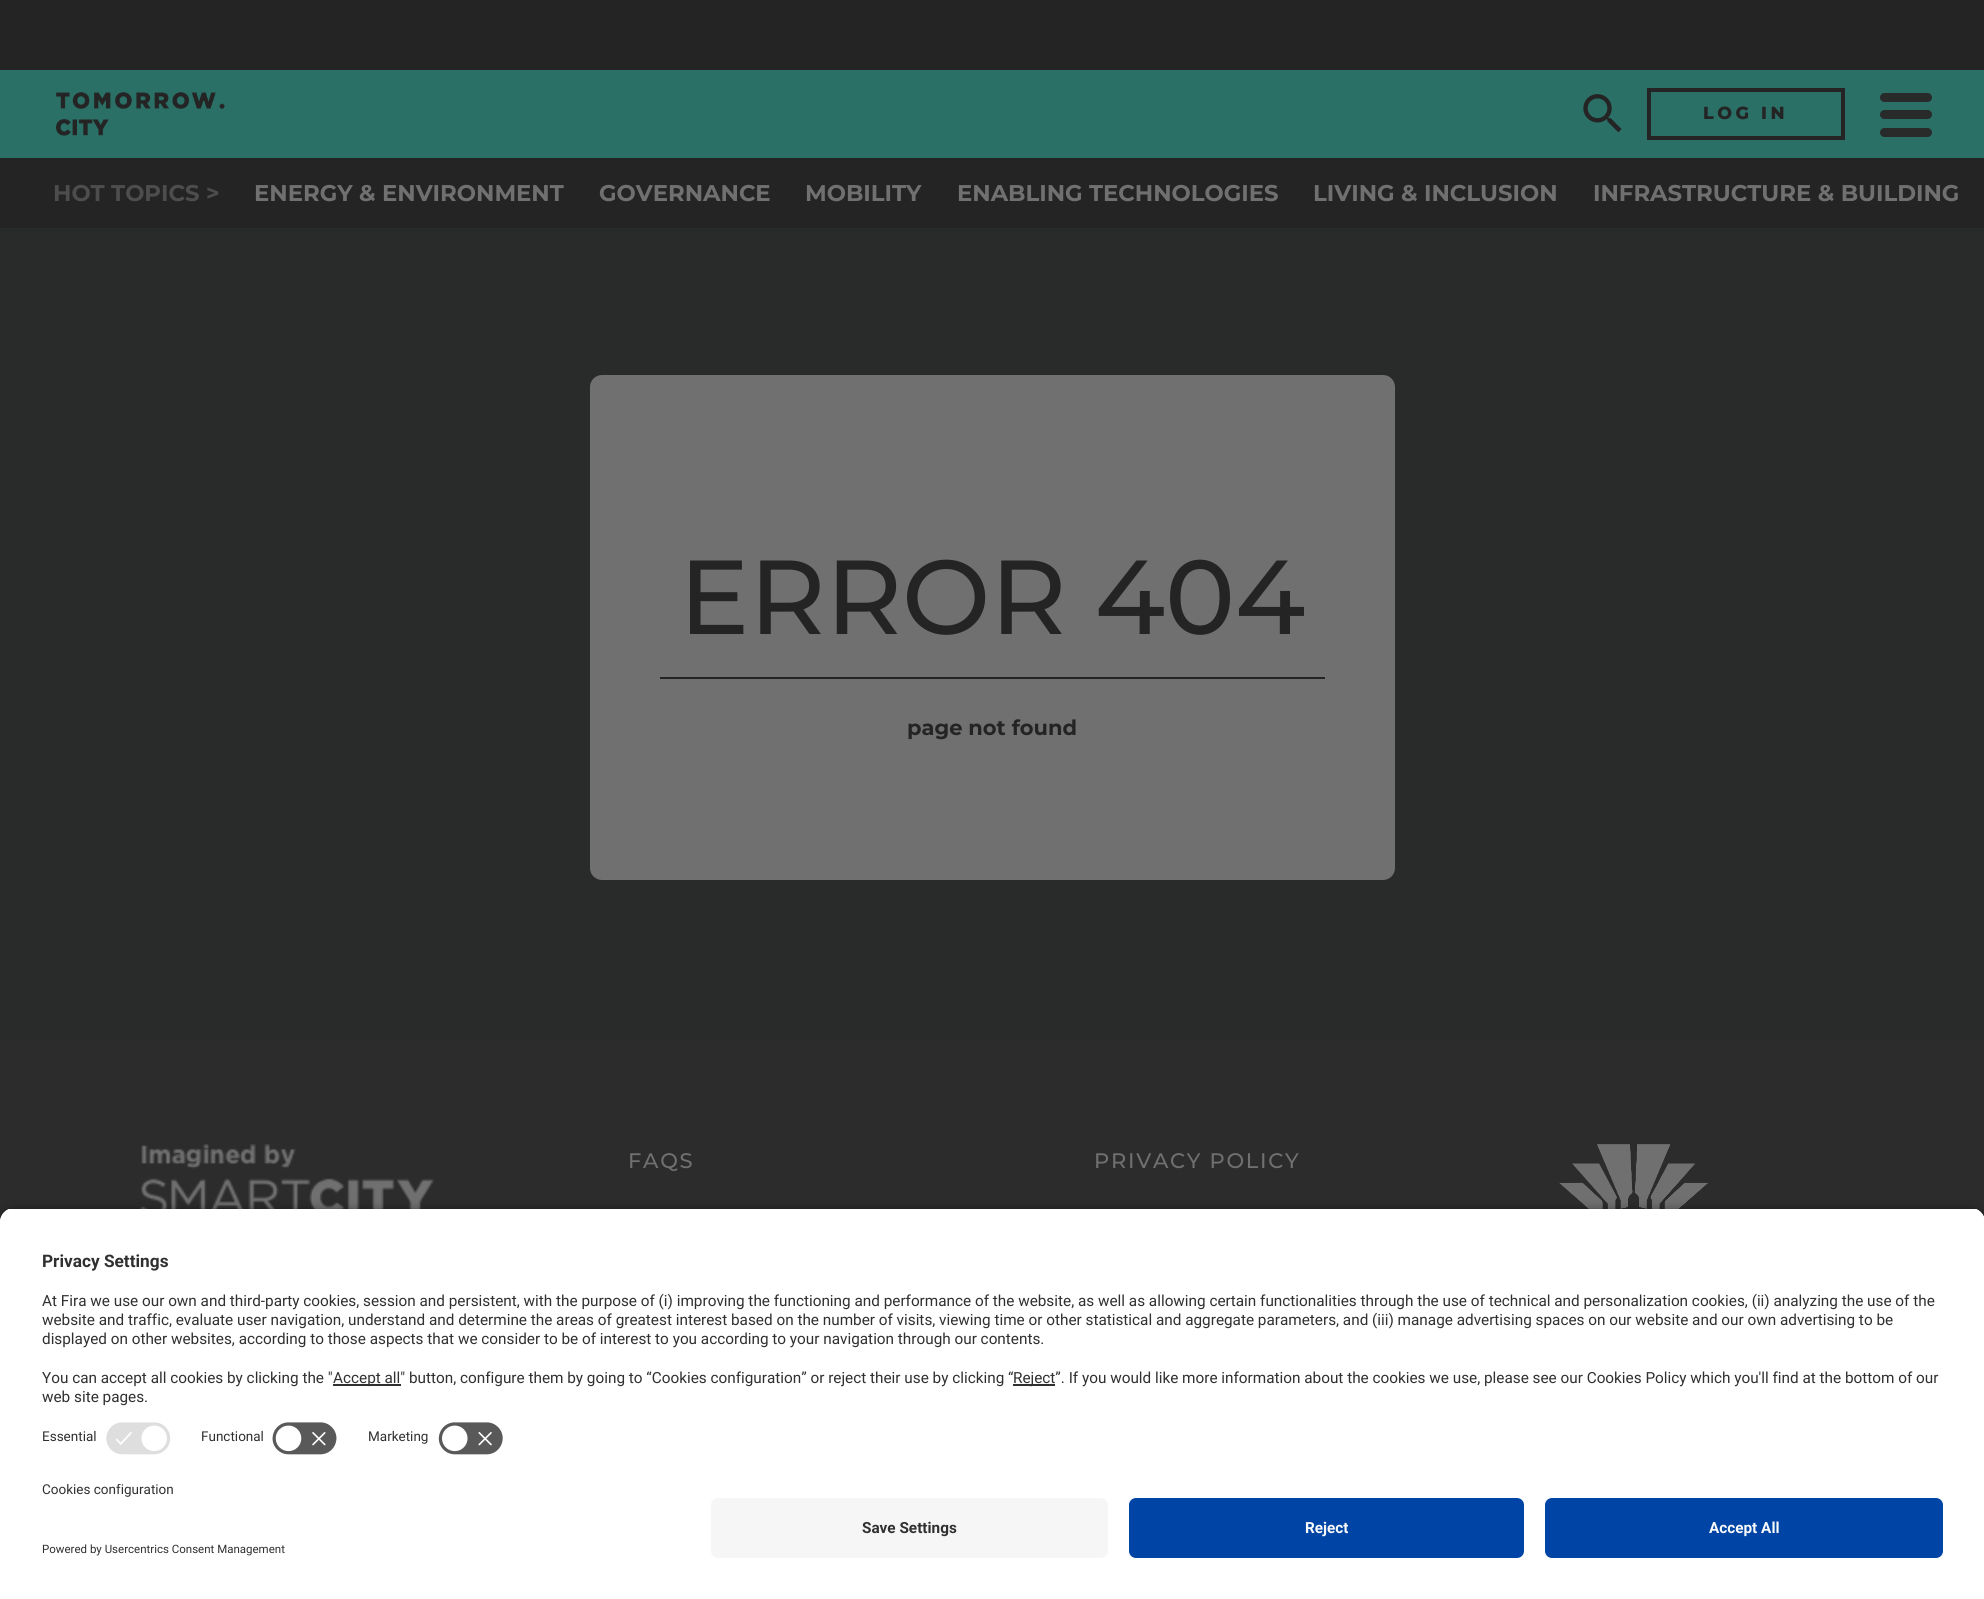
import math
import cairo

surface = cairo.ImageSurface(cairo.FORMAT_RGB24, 1984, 1599)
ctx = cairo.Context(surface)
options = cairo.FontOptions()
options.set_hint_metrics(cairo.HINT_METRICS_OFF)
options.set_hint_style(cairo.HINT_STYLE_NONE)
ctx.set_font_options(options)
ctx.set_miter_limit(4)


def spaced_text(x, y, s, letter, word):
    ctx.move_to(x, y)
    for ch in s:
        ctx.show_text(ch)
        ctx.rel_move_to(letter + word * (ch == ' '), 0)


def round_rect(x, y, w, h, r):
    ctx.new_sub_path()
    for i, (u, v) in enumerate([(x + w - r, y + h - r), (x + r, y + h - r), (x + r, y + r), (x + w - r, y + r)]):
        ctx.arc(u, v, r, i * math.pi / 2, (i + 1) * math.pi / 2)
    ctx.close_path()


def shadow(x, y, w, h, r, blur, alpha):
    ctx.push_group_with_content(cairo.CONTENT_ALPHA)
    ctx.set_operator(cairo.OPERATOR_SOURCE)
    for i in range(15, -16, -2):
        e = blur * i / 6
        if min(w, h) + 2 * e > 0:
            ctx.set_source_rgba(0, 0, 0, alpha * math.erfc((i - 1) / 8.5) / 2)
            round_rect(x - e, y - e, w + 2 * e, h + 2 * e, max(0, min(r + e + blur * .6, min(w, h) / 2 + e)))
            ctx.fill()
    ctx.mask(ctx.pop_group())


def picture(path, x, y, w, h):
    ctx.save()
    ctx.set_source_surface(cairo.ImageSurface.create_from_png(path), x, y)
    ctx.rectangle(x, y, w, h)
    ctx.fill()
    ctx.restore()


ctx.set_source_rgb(0.161, 0.165, 0.165)
ctx.paint()
ctx.set_source_rgb(0.165, 0.439, 0.4)
ctx.rectangle(0, 70, 1984, 88)
ctx.fill()
ctx.set_source_rgb(0.141, 0.141, 0.141)
ctx.rectangle(0, 0, 1984, 70)
ctx.fill()
picture("img1.png", 56, 92, 169, 44)
picture("img2.png", 1583, 94, 39, 39)
ctx.rectangle(1649, 90, 194, 48)
ctx.set_line_width(4)
ctx.stroke()
ctx.select_font_face("Montserrat ExtraBold")
ctx.set_font_size(17.5)
spaced_text(1703, 119, "LOG IN", 3.5, 0)
ctx.set_source_rgb(0.161, 0.165, 0.165)
round_rect(1880, 93, 52, 9, 4.5)
ctx.fill()
round_rect(1880, 110, 52, 9, 4.5)
ctx.fill()
round_rect(1880, 128, 52, 9, 4.5)
ctx.fill()
ctx.set_source_rgb(0.141, 0.141, 0.141)
ctx.rectangle(0, 158, 1984, 70)
ctx.fill()
ctx.select_font_face("Montserrat", cairo.FONT_SLANT_NORMAL, cairo.FONT_WEIGHT_BOLD)
ctx.set_font_size(22.75)
ctx.set_source_rgb(0.302, 0.302, 0.302)
ctx.move_to(53, 201)
ctx.show_text("HOT TOPICS >")
ctx.set_source_rgb(0.439, 0.439, 0.439)
ctx.move_to(254, 201)
ctx.show_text("ENERGY & ENVIRONMENT")
ctx.move_to(599, 201)
ctx.show_text("GOVERNANCE")
ctx.move_to(805, 201)
ctx.show_text("MOBILITY")
ctx.move_to(957, 201)
ctx.show_text("ENABLING TECHNOLOGIES")
ctx.move_to(1313, 201)
ctx.show_text("LIVING & INCLUSION")
ctx.move_to(1593, 201)
ctx.show_text("INFRASTRUCTURE & BUILDING")
round_rect(590, 375, 805, 505, 12)
ctx.fill()
ctx.set_source_rgb(0.141, 0.141, 0.141)
ctx.rectangle(660, 677, 665, 2)
ctx.fill()
ctx.select_font_face("Montserrat Medium")
ctx.set_font_size(105)
ctx.move_to(679, 634)
ctx.show_text("ERROR 404")
ctx.select_font_face("Montserrat", cairo.FONT_SLANT_NORMAL, cairo.FONT_WEIGHT_BOLD)
ctx.set_font_size(21)
ctx.move_to(907, 735)
ctx.show_text("page not found")
ctx.set_source_rgb(0.173, 0.173, 0.176)
ctx.rectangle(0, 1040, 1984, 182)
ctx.fill()
picture("img3.png", 140, 1144, 294, 65)
ctx.select_font_face("Montserrat Medium")
ctx.set_source_rgb(0.439, 0.439, 0.439)
spaced_text(628, 1168, "FAQS", 1.75, 0)
spaced_text(1094, 1168, "PRIVACY POLICY", 1.75, 0)
picture("img4.png", 1559, 1144, 149, 65)
ctx.set_source_rgb(0, 0, 0)
shadow(0, 1213, 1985, 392, 14, 6, 0.8)
ctx.set_source_rgb(1, 1, 1)
ctx.rectangle(0, 1484, 1984, 115)
ctx.fill()
ctx.select_font_face("Roboto")
ctx.set_font_size(13.5)
ctx.set_source_rgb(0.188, 0.188, 0.188)
ctx.move_to(42, 1494)
ctx.show_text("Cookies configuration")
ctx.save()
ctx.new_path()
ctx.move_to(14, 1208)
ctx.line_to(1971, 1208)
ctx.curve_to(1978.5, 1208, 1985, 1214.5, 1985, 1222)
ctx.line_to(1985, 1484)
ctx.line_to(0, 1484)
ctx.line_to(0, 1222)
ctx.curve_to(0, 1214.5, 6.5, 1208, 14, 1208)
ctx.close_path()
ctx.clip()
ctx.set_source_rgb(1, 1, 1)
ctx.rectangle(0, 1209, 1984, 275)
ctx.fill()
ctx.rectangle(0, 1209, 1984, 205)
ctx.fill()
ctx.restore()
ctx.select_font_face("Roboto", cairo.FONT_SLANT_NORMAL, cairo.FONT_WEIGHT_BOLD)
ctx.set_font_size(17.25)
ctx.move_to(42, 1267)
ctx.show_text("Privacy Settings")
ctx.select_font_face("Roboto")
ctx.set_font_size(15.31)
ctx.move_to(42, 1306)
ctx.show_text("At Fira we use our own and third-party cookies, session and persistent, with the purpose of (i) improving the functioning and performance of the website, as well as allowing certain functionalities through the use of technical and personalization cookies, (ii) analyzing the use of the")
ctx.move_to(42, 1325)
ctx.show_text("website and traffic, evaluate user navigation, understand and determine the areas of greatest interest based on the number of visits, viewing time or other statistical and aggregate parameters, and (iii) manage advertising spaces on our website and our own advertising to be")
ctx.move_to(42, 1344)
ctx.show_text("displayed on other websites, according to those aspects that we consider to be of interest to you according to your navigation through our contents.")
ctx.move_to(42, 1383)
ctx.show_text("You can accept all cookies by clicking the \"")
ctx.rectangle(333, 1384, 68, 2)
ctx.fill()
ctx.move_to(333, 1383)
ctx.show_text("Accept all\" button, configure them by going to “Cookies configuration” or reject their use by clicking “")
ctx.rectangle(1013, 1384, 42, 2)
ctx.fill()
ctx.move_to(1013, 1383)
ctx.show_text("Reject”. If you would like more information about the cookies we use, please see our Cookies Policy which you'll find at the bottom of our")
ctx.move_to(42, 1402)
ctx.show_text("web site pages.")
ctx.set_font_size(13.5)
ctx.move_to(42, 1441)
ctx.show_text("Essential")
picture("img5.png", 106, 1422, 65, 33)
ctx.move_to(201, 1441)
ctx.show_text("Functional")
picture("img6.png", 272, 1422, 65, 33)
ctx.move_to(368, 1441)
ctx.show_text("Marketing")
picture("img7.png", 438, 1422, 65, 33)
ctx.set_font_size(11.5)
ctx.move_to(42, 1553)
ctx.show_text("Powered by Usercentrics Consent Management")
ctx.set_source_rgb(0.961, 0.961, 0.961)
round_rect(711, 1498, 397, 60, 7)
ctx.fill()
ctx.select_font_face("Roboto", cairo.FONT_SLANT_NORMAL, cairo.FONT_WEIGHT_BOLD)
ctx.set_font_size(15.31)
ctx.set_source_rgb(0.188, 0.188, 0.188)
ctx.move_to(862, 1533)
ctx.show_text("Save Settings")
ctx.set_source_rgb(0, 0.271, 0.647)
round_rect(1129, 1498, 395, 60, 7)
ctx.fill()
ctx.set_source_rgb(0.98, 0.98, 0.98)
ctx.move_to(1305, 1533)
ctx.show_text("Reject")
ctx.set_source_rgb(0, 0.271, 0.647)
round_rect(1545, 1498, 398, 60, 7)
ctx.fill()
ctx.set_source_rgb(0.98, 0.98, 0.98)
ctx.move_to(1709, 1533)
ctx.show_text("Accept All")
surface.write_to_png("page.png")
